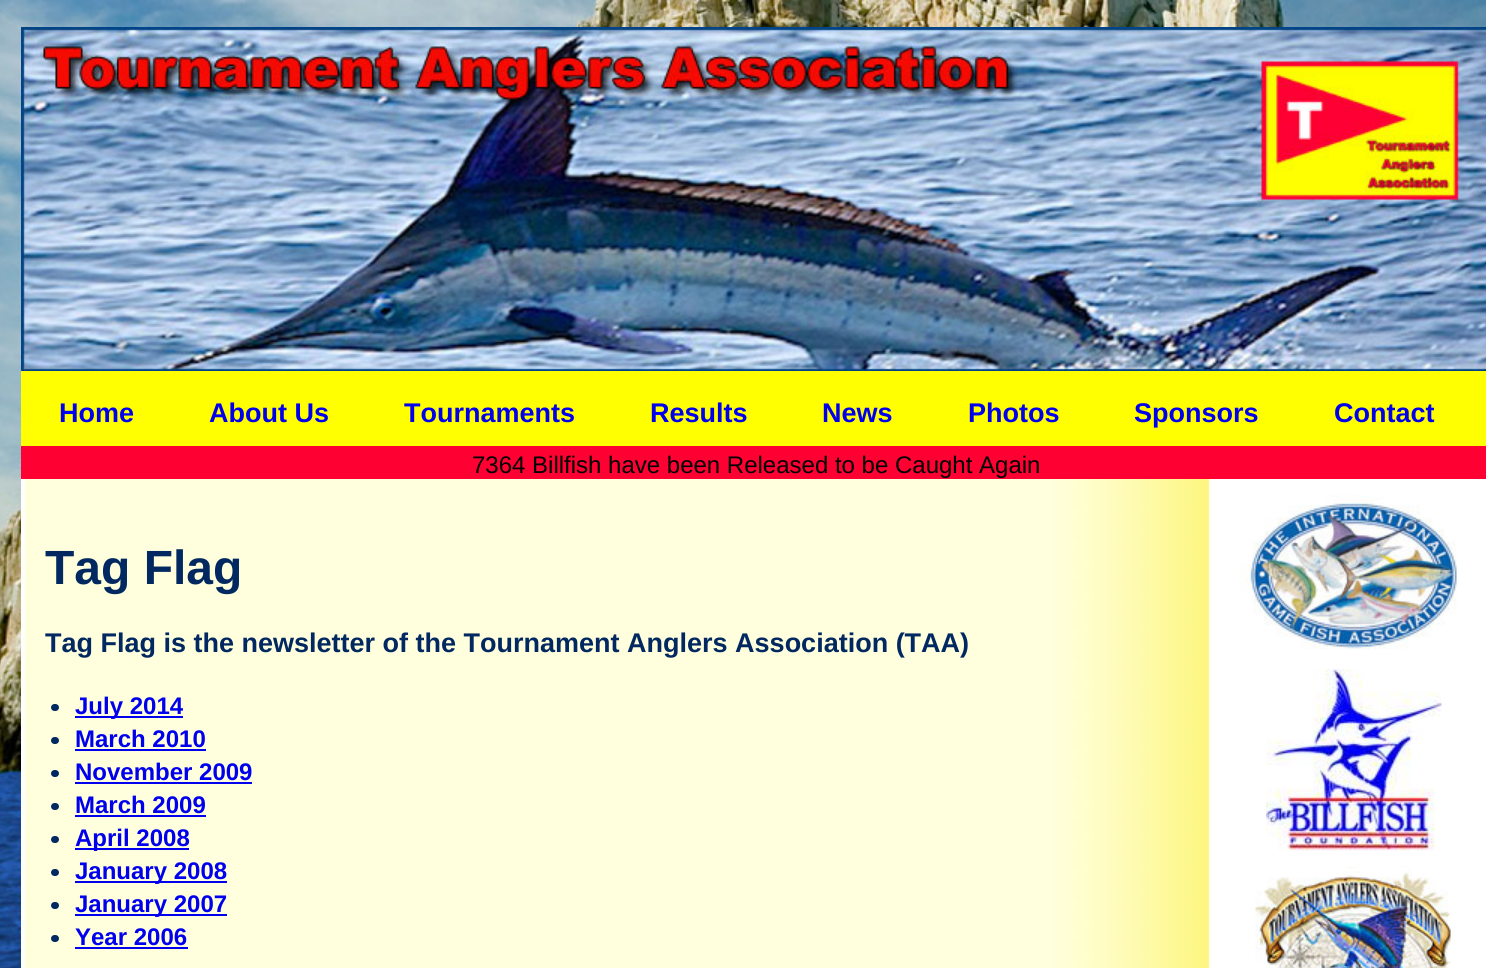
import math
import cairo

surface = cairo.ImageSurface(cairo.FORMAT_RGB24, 1486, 968)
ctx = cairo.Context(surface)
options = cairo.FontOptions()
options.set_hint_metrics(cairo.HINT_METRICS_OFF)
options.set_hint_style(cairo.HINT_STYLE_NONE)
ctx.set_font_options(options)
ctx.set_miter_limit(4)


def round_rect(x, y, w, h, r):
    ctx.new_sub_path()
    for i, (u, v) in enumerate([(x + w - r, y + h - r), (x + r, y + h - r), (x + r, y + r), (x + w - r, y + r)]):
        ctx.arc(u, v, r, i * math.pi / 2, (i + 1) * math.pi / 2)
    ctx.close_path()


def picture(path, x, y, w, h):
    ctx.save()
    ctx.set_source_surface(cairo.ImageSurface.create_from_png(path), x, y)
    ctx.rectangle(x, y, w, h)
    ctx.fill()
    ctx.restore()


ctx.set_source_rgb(1, 1, 1)
ctx.paint()
picture("img1.png", 0, 0, 1486, 968)
ctx.set_source_rgb(0, 0.267, 0.529)
ctx.rectangle(21, 370, 1465, 1)
ctx.fill()
picture("img2.png", 21, 27, 1465, 344)
ctx.set_source_rgb(1, 1, 0.004)
ctx.rectangle(21, 371, 1465, 75)
ctx.fill()
ctx.select_font_face("Arimo", cairo.FONT_SLANT_NORMAL, cairo.FONT_WEIGHT_BOLD)
ctx.set_font_size(27)
ctx.set_source_rgb(0, 0, 0.933)
ctx.move_to(59, 422)
ctx.show_text("Home")
ctx.move_to(209, 422)
ctx.show_text("About Us")
ctx.move_to(404, 422)
ctx.show_text("Tournaments")
ctx.move_to(650, 422)
ctx.show_text("Results")
ctx.move_to(822, 422)
ctx.show_text("News")
ctx.move_to(968, 422)
ctx.show_text("Photos")
ctx.move_to(1134, 422)
ctx.show_text("Sponsors")
ctx.move_to(1334, 422)
ctx.show_text("Contact")
ctx.set_source_rgb(0.996, 0, 0.196)
ctx.rectangle(21, 446, 1465, 33)
ctx.fill()
ctx.select_font_face("Arimo")
ctx.set_font_size(24)
ctx.set_source_rgb(0, 0, 0)
ctx.move_to(472, 473)
ctx.show_text("7364 Billfish have been Released to be Caught Again")
picture("img3.png", 21, 479, 1465, 489)
ctx.select_font_face("Arimo", cairo.FONT_SLANT_NORMAL, cairo.FONT_WEIGHT_BOLD)
ctx.set_font_size(48)
ctx.set_source_rgb(0.004, 0.157, 0.376)
ctx.move_to(45, 584)
ctx.show_text("Tag Flag")
ctx.set_font_size(27)
ctx.move_to(45, 652)
ctx.show_text("Tag Flag is the newsletter of the Tournament Anglers Association (TAA)")
round_rect(51, 704, 8, 7, 3.5)
ctx.fill()
ctx.set_source_rgb(0, 0, 0.933)
ctx.rectangle(75, 716, 108, 2)
ctx.fill()
ctx.set_font_size(24)
ctx.move_to(75, 714)
ctx.show_text("July 2014")
ctx.set_source_rgb(0.004, 0.157, 0.376)
round_rect(51, 737, 8, 7, 3.5)
ctx.fill()
ctx.set_source_rgb(0, 0, 0.933)
ctx.move_to(75, 747)
ctx.show_text("March 2010")
ctx.rectangle(75, 749, 131, 2)
ctx.fill()
ctx.set_source_rgb(0.004, 0.157, 0.376)
round_rect(51, 770, 8, 7, 3.5)
ctx.fill()
ctx.set_source_rgb(0, 0, 0.933)
ctx.move_to(75, 780)
ctx.show_text("November 2009")
ctx.rectangle(75, 782, 177, 2)
ctx.fill()
ctx.set_source_rgb(0.004, 0.157, 0.376)
round_rect(51, 803, 8, 7, 3.5)
ctx.fill()
ctx.set_source_rgb(0, 0, 0.933)
ctx.move_to(75, 813)
ctx.show_text("March 2009")
ctx.rectangle(75, 815, 131, 2)
ctx.fill()
ctx.set_source_rgb(0.004, 0.157, 0.376)
round_rect(51, 836, 8, 7, 3.5)
ctx.fill()
ctx.set_source_rgb(0, 0, 0.933)
ctx.rectangle(75, 848, 114, 2)
ctx.fill()
ctx.move_to(75, 846)
ctx.show_text("April 2008")
ctx.set_source_rgb(0.004, 0.157, 0.376)
round_rect(51, 869, 8, 7, 3.5)
ctx.fill()
ctx.set_source_rgb(0, 0, 0.933)
ctx.rectangle(75, 881, 152, 2)
ctx.fill()
ctx.move_to(75, 879)
ctx.show_text("January 2008")
ctx.set_source_rgb(0.004, 0.157, 0.376)
round_rect(51, 902, 8, 7, 3.5)
ctx.fill()
ctx.set_source_rgb(0, 0, 0.933)
ctx.rectangle(75, 914, 152, 2)
ctx.fill()
ctx.move_to(75, 912)
ctx.show_text("January 2007")
ctx.set_source_rgb(0.004, 0.157, 0.376)
round_rect(51, 935, 8, 7, 3.5)
ctx.fill()
ctx.set_source_rgb(0, 0, 0.933)
ctx.move_to(75, 945)
ctx.show_text("Year 2006")
ctx.rectangle(75, 947, 113, 2)
ctx.fill()
picture("img4.png", 1240, 495, 217, 155)
picture("img5.png", 1266, 669, 176, 182)
picture("img6.png", 1255, 865, 196, 103)
surface.write_to_png("page.png")
